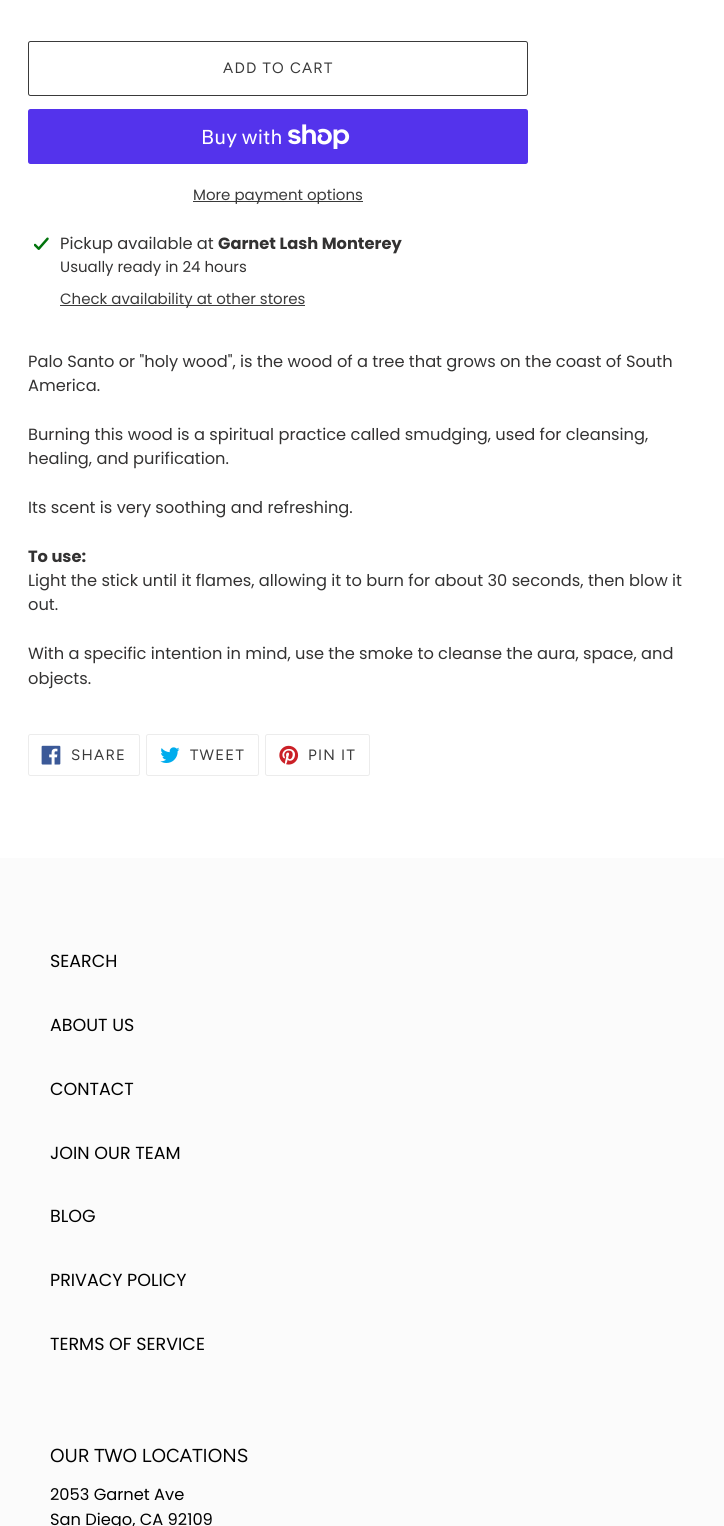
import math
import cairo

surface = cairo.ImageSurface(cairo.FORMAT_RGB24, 724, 1526)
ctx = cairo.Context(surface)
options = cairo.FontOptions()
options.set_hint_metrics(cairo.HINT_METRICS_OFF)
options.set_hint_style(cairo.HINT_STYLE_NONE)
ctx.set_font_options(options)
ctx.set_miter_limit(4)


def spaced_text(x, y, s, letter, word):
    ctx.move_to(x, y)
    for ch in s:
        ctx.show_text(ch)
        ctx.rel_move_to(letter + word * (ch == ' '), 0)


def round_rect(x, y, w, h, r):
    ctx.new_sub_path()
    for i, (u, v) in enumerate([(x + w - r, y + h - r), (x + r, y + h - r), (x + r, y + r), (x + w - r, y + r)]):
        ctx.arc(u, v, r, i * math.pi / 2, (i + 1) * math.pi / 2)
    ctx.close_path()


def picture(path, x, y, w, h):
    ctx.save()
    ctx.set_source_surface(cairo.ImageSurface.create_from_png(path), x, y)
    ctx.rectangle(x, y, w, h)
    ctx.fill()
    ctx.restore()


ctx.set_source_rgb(1, 1, 1)
ctx.paint()
round_rect(28.5, 41.5, 499, 54, 2)
ctx.set_source_rgb(0.227, 0.227, 0.227)
ctx.set_line_width(1)
ctx.stroke()
ctx.select_font_face("Figtree")
ctx.set_font_size(15)
spaced_text(223, 73, "ADD TO CART", 1.25, 0)
ctx.set_source_rgb(0.329, 0.2, 0.922)
round_rect(28, 109, 500, 55, 2.5)
ctx.fill()
ctx.select_font_face("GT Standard")
ctx.set_font_size(20)
ctx.set_source_rgb(1, 1, 1)
ctx.move_to(201, 144)
ctx.show_text("Buy with")
picture("img1.png", 288, 124, 62, 25)
ctx.set_source_rgb(0.227, 0.227, 0.227)
ctx.rectangle(193, 201, 170, 1)
ctx.fill()
ctx.select_font_face("Poppins")
ctx.set_font_size(15)
ctx.move_to(193, 200)
ctx.show_text("More payment options")
picture("img2.png", 34, 237, 15, 13)
ctx.set_font_size(16.25)
ctx.set_source_rgb(0.2, 0.196, 0.196)
ctx.move_to(60, 249)
ctx.show_text("Pickup available at")
ctx.select_font_face("Poppins", cairo.FONT_SLANT_NORMAL, cairo.FONT_WEIGHT_BOLD)
ctx.move_to(218, 249)
ctx.show_text("Garnet Lash Monterey")
ctx.select_font_face("Poppins")
ctx.set_font_size(15)
ctx.move_to(60, 272)
ctx.show_text("Usually ready in 24 hours")
ctx.set_source_rgb(0.227, 0.227, 0.227)
ctx.rectangle(60, 305, 245, 1)
ctx.fill()
ctx.move_to(60, 304)
ctx.show_text("Check availability at other stores")
ctx.set_font_size(16.25)
ctx.set_source_rgb(0.2, 0.196, 0.196)
ctx.move_to(28, 367)
ctx.show_text("Palo Santo or \"holy wood\", is the wood of a tree that grows on the coast of South")
ctx.move_to(28, 391)
ctx.show_text("America.")
ctx.move_to(28, 440)
ctx.show_text("Burning this wood is a spiritual practice called smudging, used for cleansing,")
ctx.move_to(28, 464)
ctx.show_text("healing, and purification.")
ctx.move_to(28, 513)
ctx.show_text("Its scent is very soothing and refreshing.")
ctx.select_font_face("Poppins", cairo.FONT_SLANT_NORMAL, cairo.FONT_WEIGHT_BOLD)
ctx.move_to(28, 562)
ctx.show_text("To use:")
ctx.select_font_face("Poppins")
ctx.move_to(28, 586)
ctx.show_text("Light the stick until it flames, allowing it to burn for about 30 seconds, then blow it")
ctx.move_to(28, 610)
ctx.show_text("out.")
ctx.move_to(28, 659)
ctx.show_text("With a specific intention in mind, use the smoke to cleanse the aura, space, and")
ctx.move_to(28, 684)
ctx.show_text("objects.")
round_rect(28.5, 734.5, 111, 41, 2)
ctx.set_source_rgb(0.922, 0.922, 0.922)
ctx.stroke()
picture("img3.png", 41, 745, 20, 20)
ctx.select_font_face("Figtree")
ctx.set_font_size(15)
ctx.set_source_rgb(0.227, 0.227, 0.227)
spaced_text(71, 760, "SHARE", 1.25, 0)
round_rect(146.5, 734.5, 112, 41, 2)
ctx.set_source_rgb(0.922, 0.922, 0.922)
ctx.stroke()
picture("img4.png", 160, 747, 20, 16)
ctx.set_source_rgb(0.227, 0.227, 0.227)
spaced_text(190, 760, "TWEET", 1.25, 0)
round_rect(265.5, 734.5, 104, 41, 2)
ctx.set_source_rgb(0.922, 0.922, 0.922)
ctx.stroke()
picture("img5.png", 279, 745, 20, 20)
ctx.set_source_rgb(0.227, 0.227, 0.227)
spaced_text(308, 760, "PIN IT", 1.25, 0)
ctx.set_source_rgb(0.984, 0.984, 0.984)
ctx.rectangle(0, 858, 724, 668)
ctx.fill()
ctx.select_font_face("Poppins")
ctx.set_font_size(17.5)
ctx.set_source_rgb(0, 0, 0)
ctx.move_to(50, 967)
ctx.show_text("SEARCH")
ctx.move_to(50, 1031)
ctx.show_text("ABOUT US")
ctx.move_to(50, 1095)
ctx.show_text("CONTACT")
ctx.move_to(50, 1159)
ctx.show_text("JOIN OUR TEAM")
ctx.move_to(50, 1222)
ctx.show_text("BLOG")
ctx.move_to(50, 1286)
ctx.show_text("PRIVACY POLICY")
ctx.move_to(50, 1350)
ctx.show_text("TERMS OF SERVICE")
ctx.select_font_face("Figtree")
ctx.set_font_size(18.75)
ctx.move_to(50, 1462)
ctx.show_text("OUR TWO LOCATIONS")
ctx.select_font_face("Poppins")
ctx.set_font_size(16.25)
ctx.move_to(50, 1500)
ctx.show_text("2053 Garnet Ave")
ctx.move_to(50, 1525)
ctx.show_text("San Diego, CA 92109")
surface.write_to_png("page.png")
